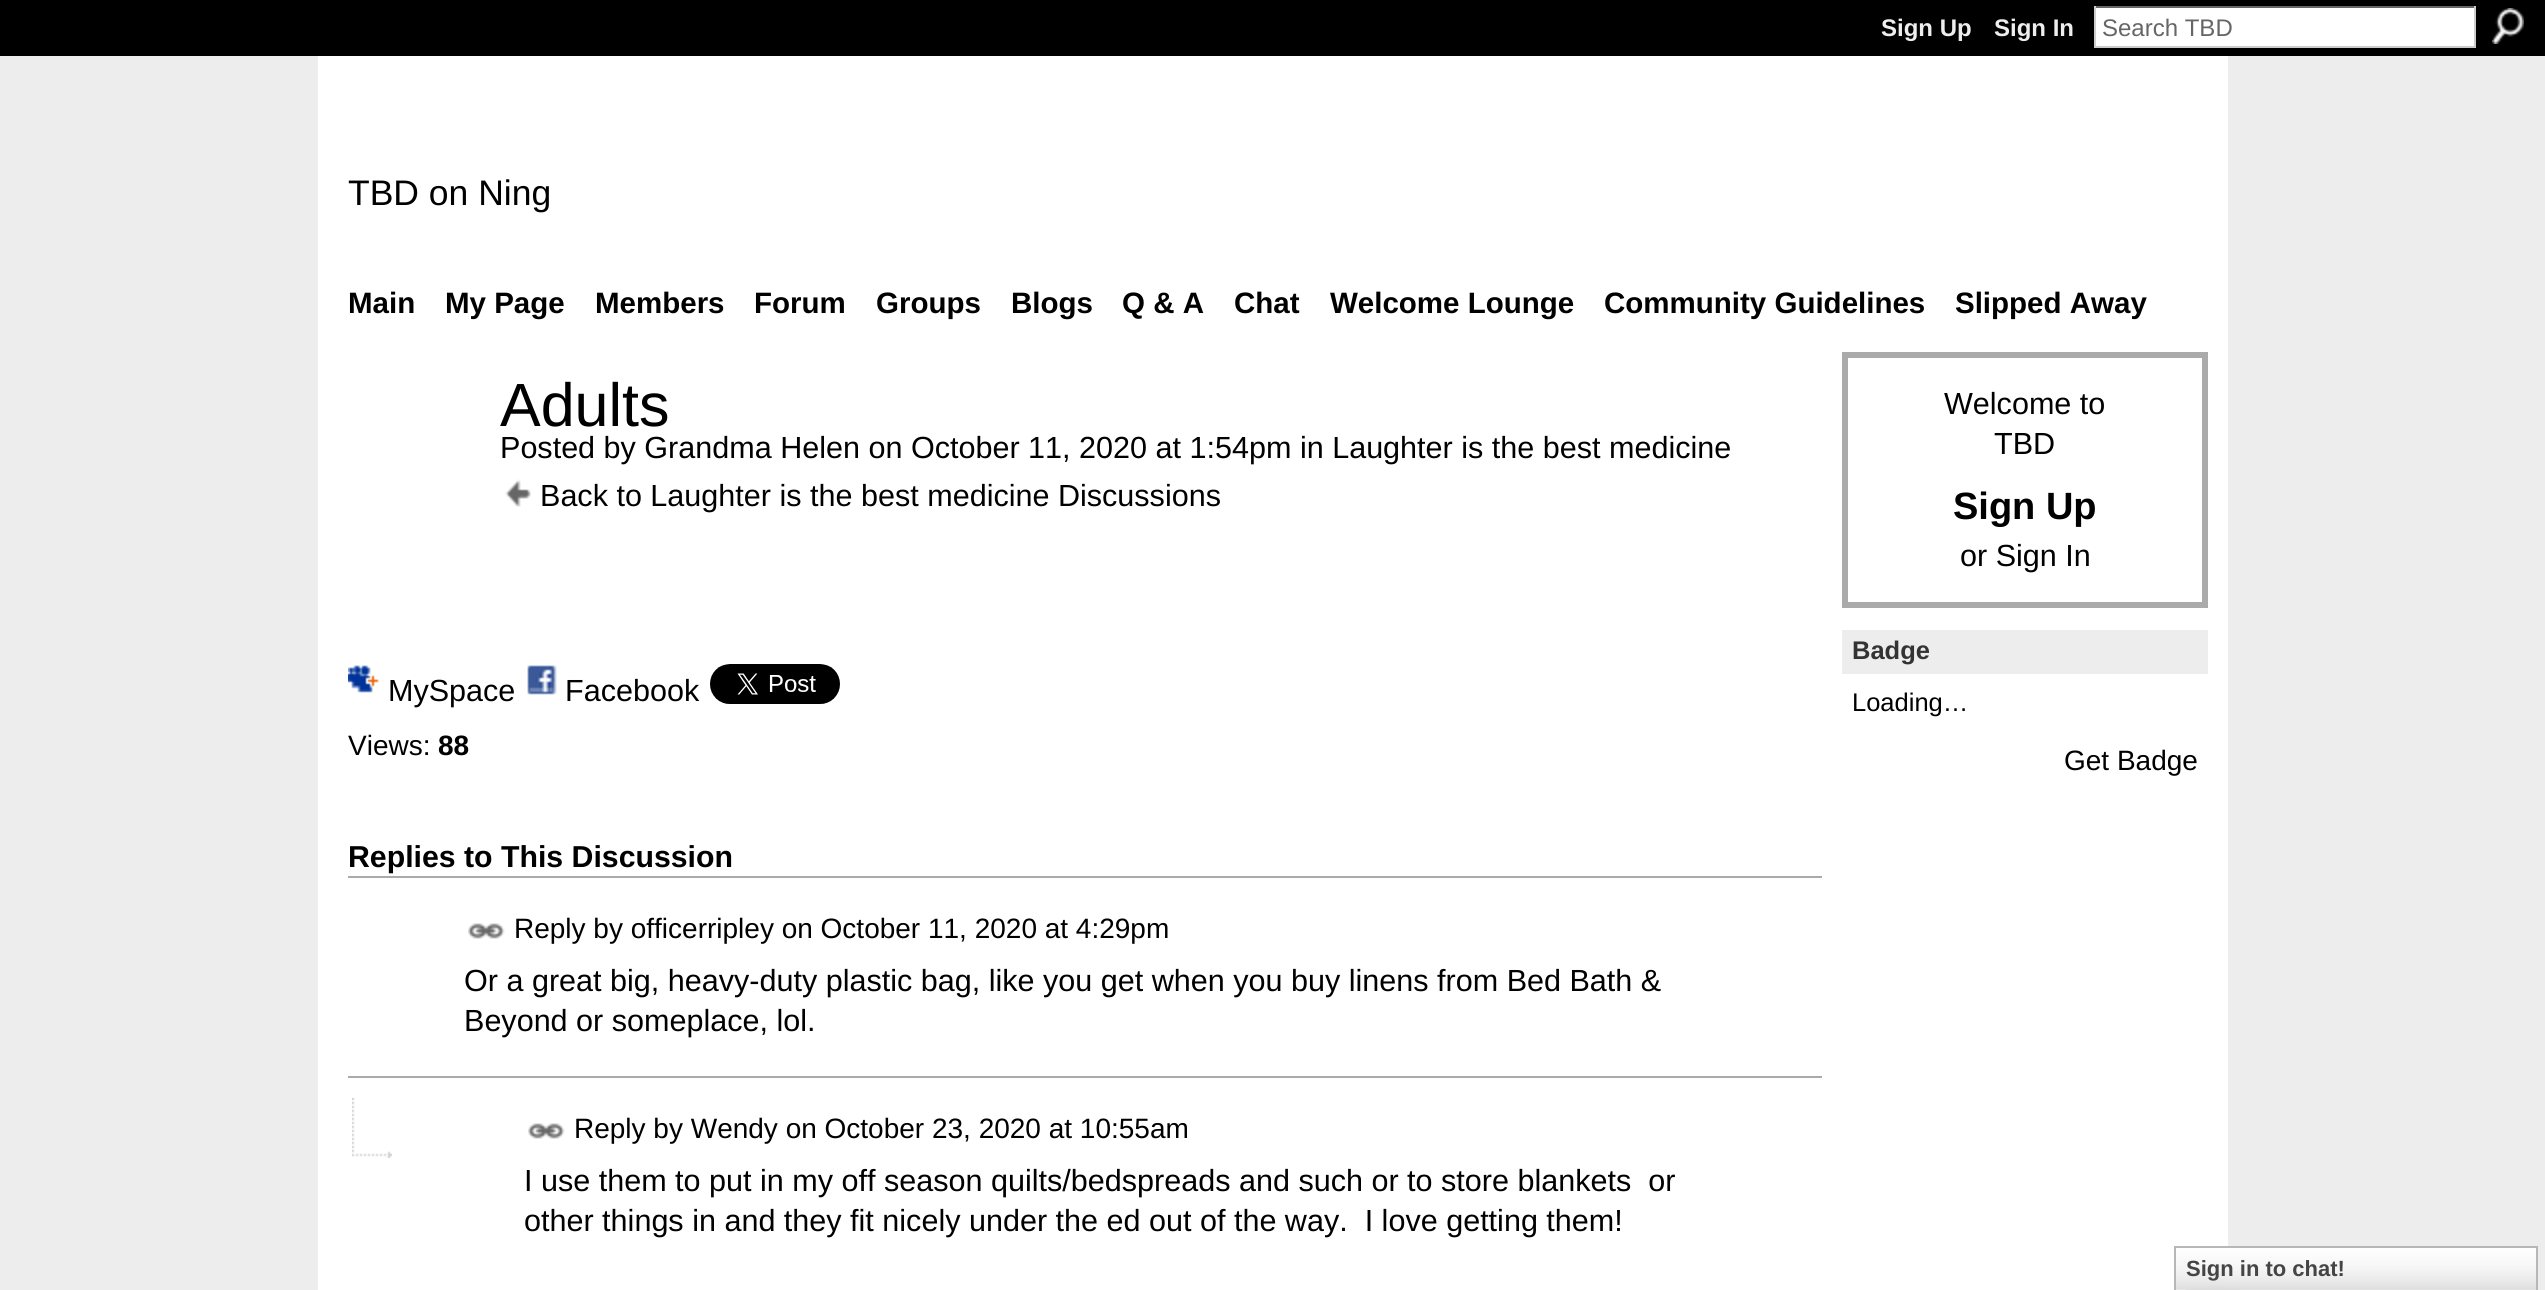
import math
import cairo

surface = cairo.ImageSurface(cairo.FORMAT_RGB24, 2545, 1290)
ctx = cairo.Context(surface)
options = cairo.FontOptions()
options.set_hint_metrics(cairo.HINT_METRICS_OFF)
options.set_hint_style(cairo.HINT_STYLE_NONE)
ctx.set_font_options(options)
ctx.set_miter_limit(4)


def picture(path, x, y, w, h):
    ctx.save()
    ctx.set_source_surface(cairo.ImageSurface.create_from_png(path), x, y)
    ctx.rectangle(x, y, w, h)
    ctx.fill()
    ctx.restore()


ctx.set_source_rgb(0.929, 0.929, 0.929)
ctx.paint()
ctx.set_source_rgb(0, 0, 0)
ctx.rectangle(0, 0, 2545, 56)
ctx.fill()
ctx.select_font_face("Liberation Sans", cairo.FONT_SLANT_NORMAL, cairo.FONT_WEIGHT_BOLD)
ctx.set_font_size(24)
ctx.set_source_rgb(0.933, 0.933, 0.933)
ctx.move_to(1881, 36)
ctx.show_text("Sign Up")
ctx.move_to(1994, 36)
ctx.show_text("Sign In")
ctx.set_source_rgb(1, 1, 1)
ctx.rectangle(2096, 8, 378, 38)
ctx.fill()
ctx.set_source_rgb(0.4, 0.4, 0.4)
ctx.rectangle(2094, 6, 382, 2)
ctx.fill()
ctx.set_source_rgb(0.8, 0.8, 0.8)
ctx.rectangle(2474, 6, 2, 42)
ctx.fill()
ctx.rectangle(2094, 46, 382, 2)
ctx.fill()
ctx.rectangle(2094, 6, 2, 42)
ctx.fill()
ctx.select_font_face("Liberation Sans")
ctx.set_source_rgb(0.4, 0.4, 0.4)
ctx.move_to(2102, 36)
ctx.show_text("Search TBD")
picture("img1.png", 2492, 8, 32, 36)
ctx.set_source_rgb(1, 1, 1)
ctx.rectangle(318, 56, 1910, 1234)
ctx.fill()
ctx.set_font_size(35.5)
ctx.set_source_rgb(0, 0, 0)
ctx.move_to(348, 205)
ctx.show_text("TBD on Ning")
ctx.select_font_face("Liberation Sans", cairo.FONT_SLANT_NORMAL, cairo.FONT_WEIGHT_BOLD)
ctx.set_font_size(29.5)
ctx.move_to(348, 313)
ctx.show_text("Main")
ctx.move_to(445, 313)
ctx.show_text("My Page")
ctx.move_to(595, 313)
ctx.show_text("Members")
ctx.move_to(754, 313)
ctx.show_text("Forum")
ctx.move_to(876, 313)
ctx.show_text("Groups")
ctx.move_to(1011, 313)
ctx.show_text("Blogs")
ctx.move_to(1122, 313)
ctx.show_text("Q & A")
ctx.move_to(1234, 313)
ctx.show_text("Chat")
ctx.move_to(1330, 313)
ctx.show_text("Welcome Lounge")
ctx.move_to(1604, 313)
ctx.show_text("Community Guidelines")
ctx.move_to(1955, 313)
ctx.show_text("Slipped Away")
ctx.select_font_face("Liberation Sans")
ctx.set_font_size(61)
ctx.move_to(500, 426)
ctx.show_text("Adults")
ctx.set_font_size(30.55)
ctx.move_to(500, 458)
ctx.show_text("Posted by Grandma Helen on October 11, 2020 at 1:54pm in Laughter is the best medicine")
picture("img2.png", 505, 479, 26, 28)
ctx.move_to(540, 506)
ctx.show_text("Back to Laughter is the best medicine Discussions")
picture("img3.png", 348, 665, 31, 28)
ctx.move_to(388, 701)
ctx.show_text("MySpace")
picture("img4.png", 527, 665, 30, 30)
ctx.move_to(565, 701)
ctx.show_text("Facebook")
picture("img5.png", 710, 664, 130, 40)
ctx.set_font_size(28)
ctx.move_to(348, 755)
ctx.show_text("Views:")
ctx.select_font_face("Liberation Sans", cairo.FONT_SLANT_NORMAL, cairo.FONT_WEIGHT_BOLD)
ctx.move_to(438, 755)
ctx.show_text("88")
ctx.set_font_size(30.25)
ctx.move_to(348, 867)
ctx.show_text("Replies to This Discussion")
ctx.set_source_rgb(0.667, 0.667, 0.667)
ctx.rectangle(348, 876, 1474, 2)
ctx.fill()
picture("img6.png", 468, 923, 37, 16)
ctx.select_font_face("Liberation Sans")
ctx.set_font_size(28)
ctx.set_source_rgb(0, 0, 0)
ctx.move_to(514, 938)
ctx.show_text("Reply by officerripley on October 11, 2020 at 4:29pm")
ctx.set_font_size(30.55)
ctx.move_to(464, 991)
ctx.show_text("Or a great big, heavy-duty plastic bag, like you get when you buy linens from Bed Bath &")
ctx.move_to(464, 1031)
ctx.show_text("Beyond or someplace, lol.")
picture("img7.png", 352, 1098, 40, 60)
ctx.set_source_rgb(0.667, 0.667, 0.667)
ctx.rectangle(348, 1076, 1474, 2)
ctx.fill()
picture("img6.png", 528, 1123, 37, 16)
ctx.set_font_size(28)
ctx.set_source_rgb(0, 0, 0)
ctx.move_to(574, 1138)
ctx.show_text("Reply by Wendy on October 23, 2020 at 10:55am")
ctx.set_font_size(30.55)
ctx.move_to(524, 1191)
ctx.show_text("I use them to put in my off season quilts/bedspreads and such or to store blankets  or")
ctx.move_to(524, 1231)
ctx.show_text("other things in and they fit nicely under the ed out of the way.  I love getting them!")
ctx.rectangle(1845, 355, 360, 250)
ctx.set_source_rgb(0.667, 0.667, 0.667)
ctx.set_line_width(6)
ctx.stroke()
ctx.set_source_rgb(0, 0, 0)
ctx.move_to(1944, 414)
ctx.show_text("Welcome to")
ctx.move_to(1994, 454)
ctx.show_text("TBD")
ctx.select_font_face("Liberation Sans", cairo.FONT_SLANT_NORMAL, cairo.FONT_WEIGHT_BOLD)
ctx.set_font_size(38)
ctx.move_to(1953, 519)
ctx.show_text("Sign Up")
ctx.select_font_face("Liberation Sans")
ctx.set_font_size(30.55)
ctx.move_to(1960, 566)
ctx.show_text("or Sign In")
ctx.set_source_rgb(0.929, 0.929, 0.929)
ctx.rectangle(1842, 630, 366, 44)
ctx.fill()
ctx.select_font_face("Liberation Sans", cairo.FONT_SLANT_NORMAL, cairo.FONT_WEIGHT_BOLD)
ctx.set_font_size(25.5)
ctx.set_source_rgb(0.2, 0.2, 0.2)
ctx.move_to(1852, 659)
ctx.show_text("Badge")
ctx.select_font_face("Liberation Sans")
ctx.set_source_rgb(0, 0, 0)
ctx.move_to(1852, 711)
ctx.show_text("Loading…")
ctx.set_font_size(28)
ctx.move_to(2064, 770)
ctx.show_text("Get Badge")
picture("img8.png", 2176, 1248, 360, 42)
ctx.rectangle(2175, 1247, 362, 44)
ctx.set_source_rgb(0.718, 0.718, 0.718)
ctx.set_line_width(2)
ctx.stroke()
ctx.set_source_rgb(0.871, 0.871, 0.871)
ctx.rectangle(2186, 1289, 54, 1)
ctx.fill()
ctx.select_font_face("Liberation Sans", cairo.FONT_SLANT_NORMAL, cairo.FONT_WEIGHT_BOLD)
ctx.set_font_size(22)
ctx.set_source_rgb(0.271, 0.271, 0.271)
ctx.move_to(2186, 1276)
ctx.show_text("Sign in to chat!")
surface.write_to_png("page.png")
